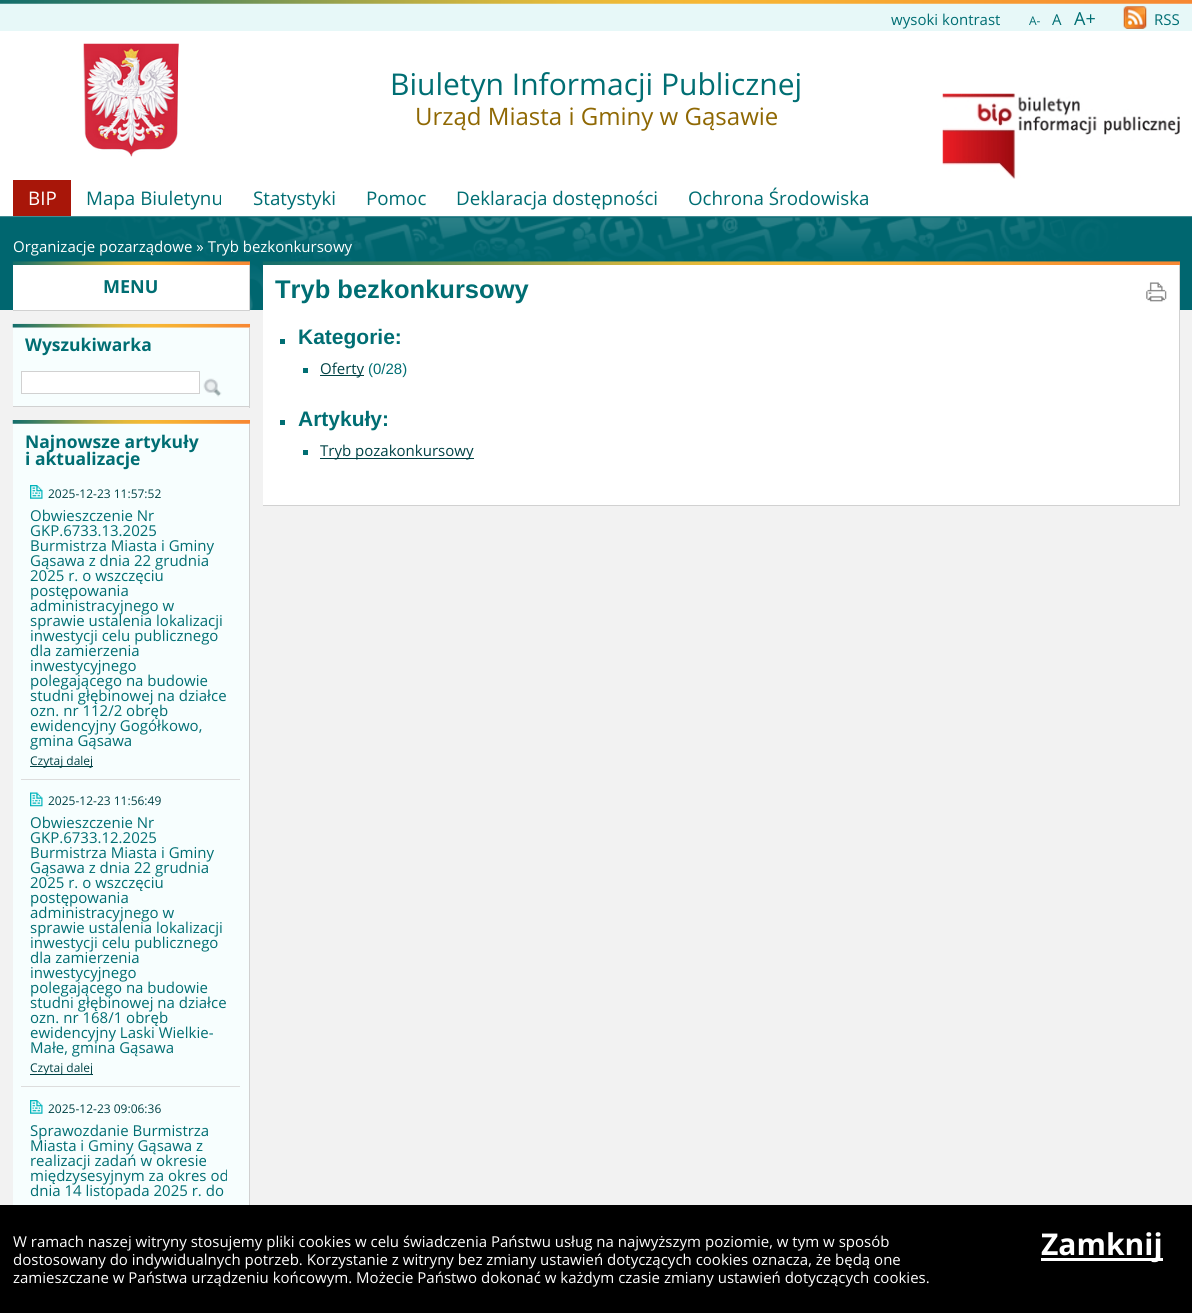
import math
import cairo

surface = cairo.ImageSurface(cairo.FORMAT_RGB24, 1192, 1313)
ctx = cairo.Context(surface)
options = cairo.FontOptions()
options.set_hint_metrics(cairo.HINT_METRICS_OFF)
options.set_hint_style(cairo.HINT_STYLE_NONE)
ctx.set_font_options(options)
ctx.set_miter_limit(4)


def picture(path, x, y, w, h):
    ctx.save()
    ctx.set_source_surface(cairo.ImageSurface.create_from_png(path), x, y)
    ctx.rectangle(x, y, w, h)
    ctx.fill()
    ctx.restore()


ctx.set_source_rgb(0.949, 0.949, 0.949)
ctx.paint()
ctx.set_source_rgb(1, 1, 1)
ctx.rectangle(0, 31, 1192, 185)
ctx.fill()
ctx.set_source_rgb(0.906, 0.969, 0.969)
ctx.rectangle(0, 3, 1192, 28)
ctx.fill()
picture("img1.png", 0, 0, 1192, 4)
ctx.select_font_face("Open Sans")
ctx.set_font_size(15)
ctx.set_source_rgb(0, 0.431, 0.451)
ctx.move_to(891, 25)
ctx.show_text("wysoki kontrast")
ctx.set_font_size(12)
ctx.move_to(1029, 25)
ctx.show_text("A-")
ctx.set_font_size(15)
ctx.move_to(1052, 25)
ctx.show_text("A")
ctx.set_font_size(18)
ctx.move_to(1074, 25)
ctx.show_text("A+")
picture("img2.png", 1123, 6, 24, 23)
ctx.set_font_size(15)
ctx.move_to(1154, 25)
ctx.show_text("RSS")
picture("img3.png", 83, 43, 96, 114)
ctx.set_font_size(30)
ctx.move_to(390, 95)
ctx.show_text("Biuletyn Informacji Publicznej")
ctx.set_font_size(24)
ctx.set_source_rgb(0.561, 0.408, 0.012)
ctx.move_to(415, 125)
ctx.show_text("Urząd Miasta i Gminy w Gąsawie")
picture("img4.png", 942, 93, 238, 86)
ctx.set_source_rgb(0.659, 0.086, 0.039)
ctx.rectangle(13, 180, 58, 36)
ctx.fill()
ctx.set_font_size(18.75)
ctx.set_source_rgb(1, 1, 1)
ctx.move_to(28, 205)
ctx.show_text("BIP")
ctx.set_source_rgb(0, 0.431, 0.451)
ctx.move_to(86, 205)
ctx.show_text("Mapa Biuletynu")
ctx.move_to(253, 205)
ctx.show_text("Statystyki")
ctx.move_to(366, 205)
ctx.show_text("Pomoc")
ctx.move_to(456, 205)
ctx.show_text("Deklaracja dostępności")
ctx.move_to(688, 205)
ctx.show_text("Ochrona Środowiska")
picture("img5.png", 0, 216, 1192, 94)
ctx.set_font_size(15)
ctx.set_source_rgb(1, 1, 1)
ctx.move_to(13, 252)
ctx.show_text("Organizacje pozarządowe » Tryb bezkonkursowy")
picture("img6.png", 12, 261, 238, 4)
ctx.rectangle(13, 265, 236, 45)
ctx.fill()
ctx.set_source_rgb(0.82, 0.82, 0.82)
ctx.rectangle(249, 265, 1, 46)
ctx.fill()
ctx.rectangle(13, 310, 237, 1)
ctx.fill()
ctx.select_font_face("Open Sans", cairo.FONT_SLANT_NORMAL, cairo.FONT_WEIGHT_BOLD)
ctx.set_font_size(18)
ctx.set_source_rgb(0, 0.431, 0.451)
ctx.move_to(103, 293)
ctx.show_text("MENU")
picture("img7.png", 262, 261, 918, 4)
ctx.set_source_rgb(1, 1, 1)
ctx.rectangle(263, 265, 916, 240)
ctx.fill()
ctx.set_source_rgb(0.82, 0.82, 0.82)
ctx.rectangle(1179, 265, 1, 241)
ctx.fill()
ctx.rectangle(263, 505, 917, 1)
ctx.fill()
ctx.select_font_face("Liberation Sans", cairo.FONT_SLANT_NORMAL, cairo.FONT_WEIGHT_BOLD)
ctx.set_font_size(25.5)
ctx.set_source_rgb(0, 0.431, 0.451)
ctx.move_to(275, 298)
ctx.show_text("Tryb bezkonkursowy")
picture("img8.png", 1146, 282, 21, 20)
ctx.rectangle(280, 339, 5, 5)
ctx.fill()
ctx.set_font_size(21)
ctx.move_to(298, 344)
ctx.show_text("Kategorie:")
ctx.rectangle(303, 368, 5, 5)
ctx.fill()
ctx.set_source_rgb(0, 0.259, 0.271)
ctx.rectangle(320, 375, 44, 1)
ctx.fill()
ctx.select_font_face("Open Sans")
ctx.set_font_size(15)
ctx.move_to(320, 374)
ctx.show_text("Oferty")
ctx.select_font_face("Liberation Sans")
ctx.set_source_rgb(0, 0.431, 0.451)
ctx.move_to(368, 374)
ctx.show_text("(0/28)")
ctx.rectangle(280, 420, 5, 5)
ctx.fill()
ctx.select_font_face("Liberation Sans", cairo.FONT_SLANT_NORMAL, cairo.FONT_WEIGHT_BOLD)
ctx.set_font_size(21)
ctx.move_to(298, 426)
ctx.show_text("Artykuły:")
ctx.rectangle(303, 450, 5, 5)
ctx.fill()
ctx.set_source_rgb(0, 0.259, 0.271)
ctx.rectangle(320, 458, 154, 1)
ctx.fill()
ctx.select_font_face("Open Sans")
ctx.set_font_size(15)
ctx.move_to(320, 456)
ctx.show_text("Tryb pozakonkursowy")
picture("img9.png", 12, 323, 238, 5)
ctx.set_source_rgb(0.965, 0.996, 0.996)
ctx.rectangle(13, 328, 236, 78)
ctx.fill()
ctx.set_source_rgb(0.82, 0.82, 0.82)
ctx.rectangle(249, 328, 1, 80)
ctx.fill()
ctx.rectangle(13, 406, 237, 1)
ctx.fill()
ctx.select_font_face("Open Sans", cairo.FONT_SLANT_NORMAL, cairo.FONT_WEIGHT_BOLD)
ctx.set_font_size(17.5)
ctx.set_source_rgb(0, 0.431, 0.451)
ctx.move_to(25, 351)
ctx.show_text("Wyszukiwarka")
ctx.set_source_rgb(1, 1, 1)
ctx.rectangle(21.5, 371.5, 178, 22)
ctx.fill_preserve()
ctx.set_source_rgb(0.82, 0.82, 0.82)
ctx.set_line_width(1)
ctx.stroke()
picture("img10.png", 203, 378, 19, 19)
picture("img11.png", 12, 420, 238, 4)
ctx.set_source_rgb(0.965, 0.996, 0.996)
ctx.rectangle(13, 424, 236, 781)
ctx.fill()
ctx.set_source_rgb(0.82, 0.82, 0.82)
ctx.rectangle(249, 424, 1, 781)
ctx.fill()
ctx.set_source_rgb(0, 0.431, 0.451)
ctx.move_to(25, 448)
ctx.show_text("Najnowsze artykuły")
ctx.move_to(25, 465)
ctx.show_text("i aktualizacje")
picture("img12.png", 30, 485, 13, 14)
ctx.select_font_face("Open Sans")
ctx.set_font_size(12)
ctx.set_source_rgb(0, 0.259, 0.271)
ctx.move_to(48, 498)
ctx.show_text("2025-12-23 11:57:52")
ctx.set_font_size(15)
ctx.set_source_rgb(0, 0.431, 0.451)
ctx.move_to(30, 521)
ctx.show_text("Obwieszczenie Nr")
ctx.move_to(30, 536)
ctx.show_text("GKP.6733.13.2025")
ctx.move_to(30, 551)
ctx.show_text("Burmistrza Miasta i Gminy")
ctx.move_to(30, 566)
ctx.show_text("Gąsawa z dnia 22 grudnia")
ctx.move_to(30, 581)
ctx.show_text("2025 r. o wszczęciu")
ctx.move_to(30, 596)
ctx.show_text("postępowania")
ctx.move_to(30, 611)
ctx.show_text("administracyjnego w")
ctx.move_to(30, 626)
ctx.show_text("sprawie ustalenia lokalizacji")
ctx.move_to(30, 641)
ctx.show_text("inwestycji celu publicznego")
ctx.move_to(30, 656)
ctx.show_text("dla zamierzenia")
ctx.move_to(30, 671)
ctx.show_text("inwestycyjnego")
ctx.move_to(30, 686)
ctx.show_text("polegającego na budowie")
ctx.move_to(30, 701)
ctx.show_text("studni głębinowej na działce")
ctx.move_to(30, 716)
ctx.show_text("ozn. nr 112/2 obręb")
ctx.move_to(30, 731)
ctx.show_text("ewidencyjny Gogółkowo,")
ctx.move_to(30, 746)
ctx.show_text("gmina Gąsawa")
ctx.set_source_rgb(0, 0.259, 0.271)
ctx.rectangle(30, 766, 63, 1)
ctx.fill()
ctx.set_font_size(12)
ctx.move_to(30, 765)
ctx.show_text("Czytaj dalej")
ctx.set_source_rgb(0.867, 0.867, 0.867)
ctx.rectangle(21, 779, 219, 1)
ctx.fill()
picture("img13.png", 30, 792, 13, 15)
ctx.set_source_rgb(0, 0.259, 0.271)
ctx.move_to(48, 805)
ctx.show_text("2025-12-23 11:56:49")
ctx.set_font_size(15)
ctx.set_source_rgb(0, 0.431, 0.451)
ctx.move_to(30, 828)
ctx.show_text("Obwieszczenie Nr")
ctx.move_to(30, 843)
ctx.show_text("GKP.6733.12.2025")
ctx.move_to(30, 858)
ctx.show_text("Burmistrza Miasta i Gminy")
ctx.move_to(30, 873)
ctx.show_text("Gąsawa z dnia 22 grudnia")
ctx.move_to(30, 888)
ctx.show_text("2025 r. o wszczęciu")
ctx.move_to(30, 903)
ctx.show_text("postępowania")
ctx.move_to(30, 918)
ctx.show_text("administracyjnego w")
ctx.move_to(30, 933)
ctx.show_text("sprawie ustalenia lokalizacji")
ctx.move_to(30, 948)
ctx.show_text("inwestycji celu publicznego")
ctx.move_to(30, 963)
ctx.show_text("dla zamierzenia")
ctx.move_to(30, 978)
ctx.show_text("inwestycyjnego")
ctx.move_to(30, 993)
ctx.show_text("polegającego na budowie")
ctx.move_to(30, 1008)
ctx.show_text("studni głębinowej na działce")
ctx.move_to(30, 1023)
ctx.show_text("ozn. nr 168/1 obręb")
ctx.move_to(30, 1038)
ctx.show_text("ewidencyjny Laski Wielkie-")
ctx.move_to(30, 1053)
ctx.show_text("Małe, gmina Gąsawa")
ctx.set_source_rgb(0, 0.259, 0.271)
ctx.rectangle(30, 1074, 63, 1)
ctx.fill()
ctx.set_font_size(12)
ctx.move_to(30, 1072)
ctx.show_text("Czytaj dalej")
ctx.set_source_rgb(0.867, 0.867, 0.867)
ctx.rectangle(21, 1086, 219, 1)
ctx.fill()
picture("img12.png", 30, 1100, 13, 14)
ctx.set_source_rgb(0, 0.259, 0.271)
ctx.move_to(48, 1113)
ctx.show_text("2025-12-23 09:06:36")
ctx.set_font_size(15)
ctx.set_source_rgb(0, 0.431, 0.451)
ctx.move_to(30, 1136)
ctx.show_text("Sprawozdanie Burmistrza")
ctx.move_to(30, 1151)
ctx.show_text("Miasta i Gminy Gąsawa z")
ctx.move_to(30, 1166)
ctx.show_text("realizacji zadań w okresie")
ctx.move_to(30, 1181)
ctx.show_text("międzysesyjnym za okres od")
ctx.move_to(30, 1196)
ctx.show_text("dnia 14 listopada 2025 r. do")
ctx.set_source_rgb(0, 0, 0)
ctx.rectangle(0, 1205, 1192, 108)
ctx.fill()
ctx.set_source_rgb(1, 1, 1)
ctx.move_to(13, 1247)
ctx.show_text("W ramach naszej witryny stosujemy pliki cookies w celu świadczenia Państwu usług na najwyższym poziomie, w tym w sposób")
ctx.move_to(13, 1265)
ctx.show_text("dostosowany do indywidualnych potrzeb. Korzystanie z witryny bez zmiany ustawień dotyczących cookies oznacza, że będą one")
ctx.move_to(13, 1283)
ctx.show_text("zamieszczane w Państwa urządzeniu końcowym. Możecie Państwo dokonać w każdym czasie zmiany ustawień dotyczących cookies.")
ctx.rectangle(1041, 1258, 122, 3)
ctx.fill()
ctx.select_font_face("Open Sans", cairo.FONT_SLANT_NORMAL, cairo.FONT_WEIGHT_BOLD)
ctx.set_font_size(30)
ctx.move_to(1041, 1255)
ctx.show_text("Zamknij")
surface.write_to_png("page.png")
